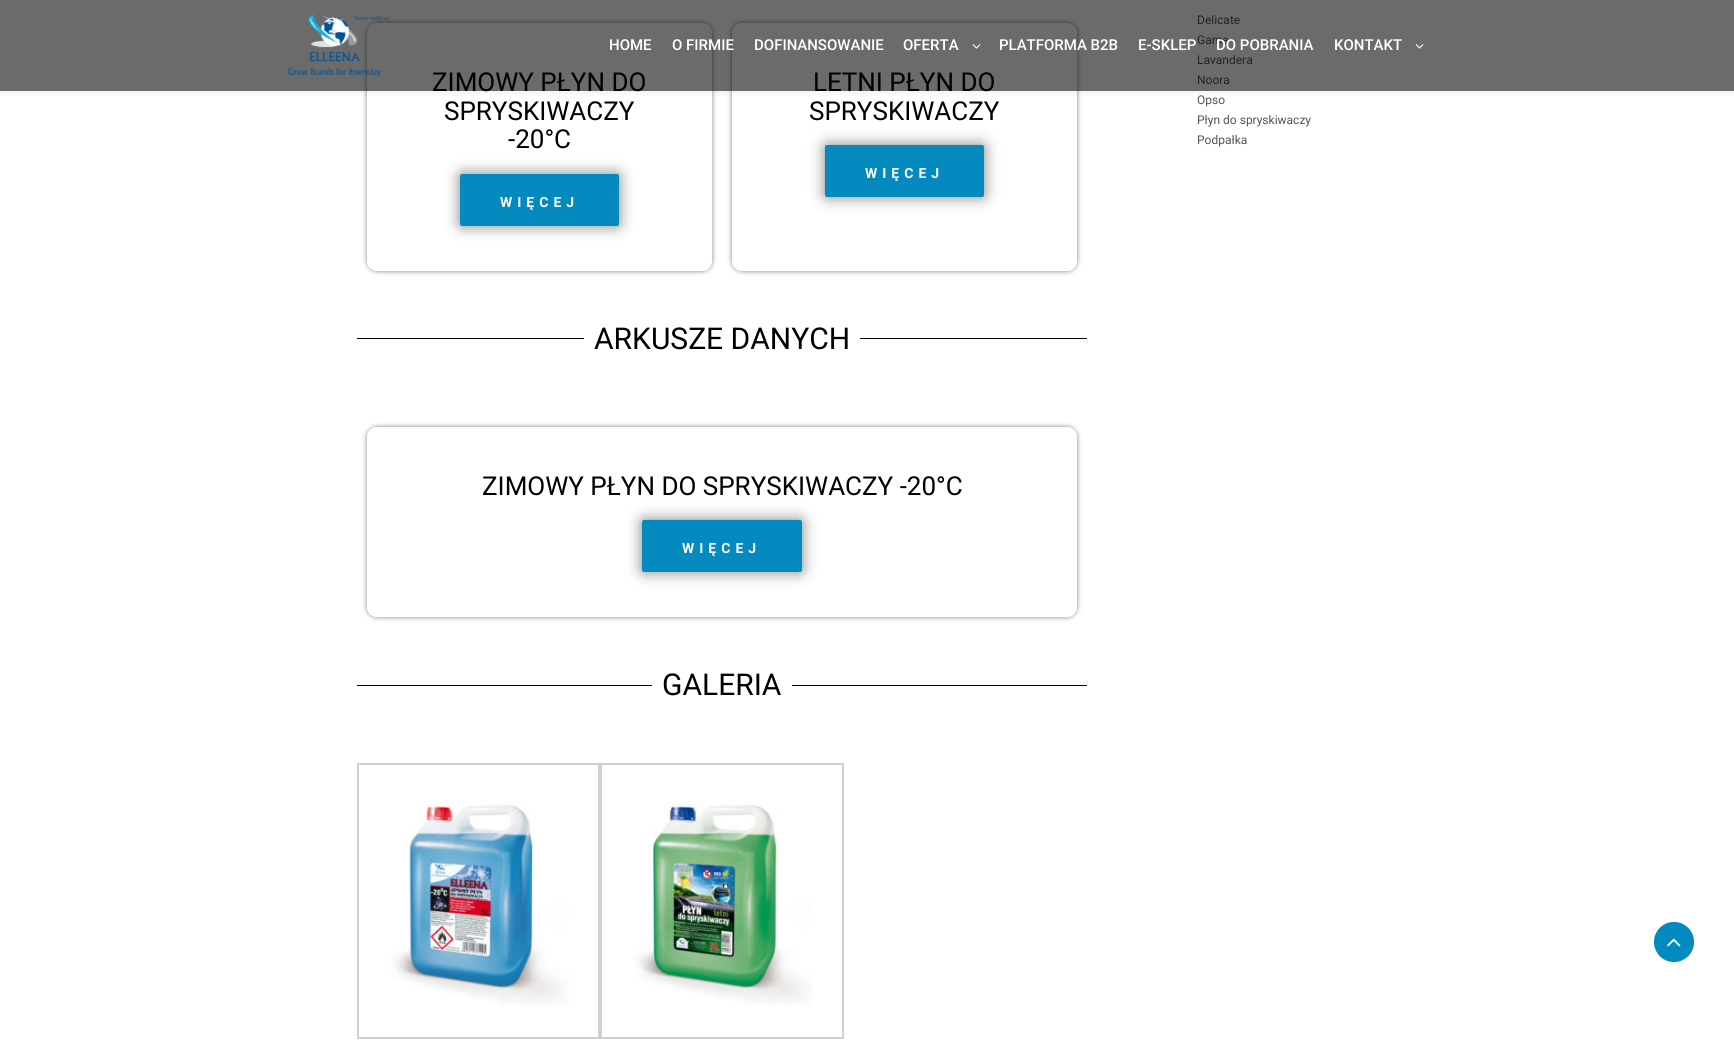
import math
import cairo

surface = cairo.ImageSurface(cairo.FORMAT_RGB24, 1734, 1062)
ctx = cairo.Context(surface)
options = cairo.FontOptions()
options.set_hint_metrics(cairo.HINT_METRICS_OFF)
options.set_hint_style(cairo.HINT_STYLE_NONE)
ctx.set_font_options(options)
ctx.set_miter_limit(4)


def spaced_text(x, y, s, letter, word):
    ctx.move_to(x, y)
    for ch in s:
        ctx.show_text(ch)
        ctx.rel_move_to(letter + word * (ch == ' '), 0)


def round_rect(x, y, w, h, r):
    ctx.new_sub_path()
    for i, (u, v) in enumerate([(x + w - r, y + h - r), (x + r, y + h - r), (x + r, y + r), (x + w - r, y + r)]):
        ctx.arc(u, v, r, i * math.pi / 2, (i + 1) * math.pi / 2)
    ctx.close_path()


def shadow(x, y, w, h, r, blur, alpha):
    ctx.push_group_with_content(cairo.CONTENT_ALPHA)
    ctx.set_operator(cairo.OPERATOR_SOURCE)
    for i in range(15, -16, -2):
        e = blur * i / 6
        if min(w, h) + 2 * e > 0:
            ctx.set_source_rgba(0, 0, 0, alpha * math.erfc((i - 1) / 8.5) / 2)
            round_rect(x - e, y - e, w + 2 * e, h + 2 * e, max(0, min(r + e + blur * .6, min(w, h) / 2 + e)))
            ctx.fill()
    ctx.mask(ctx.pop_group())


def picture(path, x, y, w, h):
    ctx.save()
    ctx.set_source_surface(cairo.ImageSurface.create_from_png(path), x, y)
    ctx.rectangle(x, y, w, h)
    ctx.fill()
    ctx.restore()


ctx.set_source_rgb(1, 1, 1)
ctx.paint()
ctx.save()
ctx.set_fill_rule(cairo.FILL_RULE_EVEN_ODD)
ctx.new_path()
ctx.move_to(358, 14)
ctx.line_to(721, 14)
ctx.line_to(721, 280)
ctx.line_to(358, 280)
ctx.close_path()
ctx.move_to(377, 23)
ctx.line_to(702, 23)
ctx.curve_to(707.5, 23, 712, 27.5, 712, 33)
ctx.line_to(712, 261)
ctx.curve_to(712, 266.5, 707.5, 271, 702, 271)
ctx.line_to(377, 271)
ctx.curve_to(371.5, 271, 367, 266.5, 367, 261)
ctx.line_to(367, 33)
ctx.curve_to(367, 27.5, 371.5, 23, 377, 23)
ctx.close_path()
ctx.clip()
ctx.set_source_rgb(0, 0, 0)
shadow(367, 23, 345, 248, 10, 2.5, 0.5)
ctx.restore()
ctx.select_font_face("Roboto")
ctx.set_font_size(26)
ctx.set_source_rgb(0, 0, 0)
ctx.move_to(432, 91)
ctx.show_text("ZIMOWY PŁYN DO")
ctx.move_to(444, 120)
ctx.show_text("SPRYSKIWACZY")
ctx.move_to(508, 148)
ctx.show_text("-20°C")
ctx.set_source_rgb(0, 0, 0)
shadow(460, 174, 159, 52, 2, 7.5, 0.5)
ctx.set_source_rgb(0.016, 0.541, 0.749)
round_rect(460, 174, 159, 52, 2)
ctx.fill()
ctx.select_font_face("Roboto", cairo.FONT_SLANT_NORMAL, cairo.FONT_WEIGHT_BOLD)
ctx.set_font_size(14)
ctx.set_source_rgb(1, 1, 1)
spaced_text(500, 207, "WIĘCEJ", 5, 0)
ctx.save()
ctx.set_fill_rule(cairo.FILL_RULE_EVEN_ODD)
ctx.new_path()
ctx.move_to(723, 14)
ctx.line_to(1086, 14)
ctx.line_to(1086, 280)
ctx.line_to(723, 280)
ctx.close_path()
ctx.move_to(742, 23)
ctx.line_to(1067, 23)
ctx.curve_to(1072.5, 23, 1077, 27.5, 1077, 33)
ctx.line_to(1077, 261)
ctx.curve_to(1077, 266.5, 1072.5, 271, 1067, 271)
ctx.line_to(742, 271)
ctx.curve_to(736.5, 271, 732, 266.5, 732, 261)
ctx.line_to(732, 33)
ctx.curve_to(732, 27.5, 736.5, 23, 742, 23)
ctx.close_path()
ctx.clip()
ctx.set_source_rgb(0, 0, 0)
shadow(732, 23, 345, 248, 10, 2.5, 0.5)
ctx.restore()
ctx.select_font_face("Roboto")
ctx.set_font_size(26)
ctx.set_source_rgb(0, 0, 0)
ctx.move_to(813, 91)
ctx.show_text("LETNI PŁYN DO")
ctx.move_to(809, 120)
ctx.show_text("SPRYSKIWACZY")
ctx.set_source_rgb(0, 0, 0)
shadow(825, 145, 159, 52, 2, 7.5, 0.5)
ctx.set_source_rgb(0.016, 0.541, 0.749)
round_rect(825, 145, 159, 52, 2)
ctx.fill()
ctx.select_font_face("Roboto", cairo.FONT_SLANT_NORMAL, cairo.FONT_WEIGHT_BOLD)
ctx.set_font_size(14)
ctx.set_source_rgb(1, 1, 1)
spaced_text(865, 178, "WIĘCEJ", 5, 0)
ctx.set_source_rgb(0, 0, 0)
ctx.rectangle(357, 338, 227, 1)
ctx.fill()
ctx.select_font_face("Roboto")
ctx.set_font_size(30)
ctx.move_to(594, 349)
ctx.show_text("ARKUSZE DANYCH")
ctx.rectangle(860, 338, 227, 1)
ctx.fill()
ctx.save()
ctx.set_fill_rule(cairo.FILL_RULE_EVEN_ODD)
ctx.new_path()
ctx.move_to(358, 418)
ctx.line_to(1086, 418)
ctx.line_to(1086, 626)
ctx.line_to(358, 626)
ctx.close_path()
ctx.move_to(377, 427)
ctx.line_to(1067, 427)
ctx.curve_to(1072.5, 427, 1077, 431.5, 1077, 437)
ctx.line_to(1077, 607)
ctx.curve_to(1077, 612.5, 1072.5, 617, 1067, 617)
ctx.line_to(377, 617)
ctx.curve_to(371.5, 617, 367, 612.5, 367, 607)
ctx.line_to(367, 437)
ctx.curve_to(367, 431.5, 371.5, 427, 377, 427)
ctx.close_path()
ctx.clip()
ctx.set_source_rgb(0, 0, 0)
shadow(367, 427, 710, 190, 10, 2.5, 0.5)
ctx.restore()
ctx.set_font_size(26)
ctx.move_to(482, 495)
ctx.show_text("ZIMOWY PŁYN DO SPRYSKIWACZY -20°C")
ctx.set_source_rgb(0, 0, 0)
shadow(642, 520, 160, 52, 2, 7.5, 0.5)
ctx.set_source_rgb(0.016, 0.541, 0.749)
round_rect(642, 520, 160, 52, 2)
ctx.fill()
ctx.select_font_face("Roboto", cairo.FONT_SLANT_NORMAL, cairo.FONT_WEIGHT_BOLD)
ctx.set_font_size(14)
ctx.set_source_rgb(1, 1, 1)
spaced_text(682, 553, "WIĘCEJ", 5, 0)
ctx.set_source_rgb(0, 0, 0)
ctx.rectangle(357, 685, 295, 1)
ctx.fill()
ctx.select_font_face("Roboto")
ctx.set_font_size(30)
ctx.move_to(662, 695)
ctx.show_text("GALERIA")
ctx.rectangle(792, 685, 295, 1)
ctx.fill()
ctx.rectangle(358, 764, 241, 274)
ctx.set_source_rgb(0.812, 0.812, 0.812)
ctx.stroke()
picture("img1.png", 391, 801, 178, 205)
ctx.rectangle(601, 764, 242, 274)
ctx.stroke()
picture("img2.png", 634, 801, 179, 205)
ctx.set_font_size(12)
ctx.set_source_rgb(0.325, 0.325, 0.325)
ctx.move_to(1197, 24)
ctx.show_text("Delicate")
ctx.move_to(1197, 44)
ctx.show_text("Gama")
ctx.move_to(1197, 64)
ctx.show_text("Lavandera")
ctx.move_to(1197, 84)
ctx.show_text("Noora")
ctx.move_to(1197, 104)
ctx.show_text("Opso")
ctx.move_to(1197, 124)
ctx.show_text("Płyn do spryskiwaczy")
ctx.move_to(1197, 144)
ctx.show_text("Podpałka")
ctx.save()
ctx.rectangle(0, 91, 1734, 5)
ctx.clip()
ctx.set_source_rgb(0, 0, 0)
shadow(0, 0, 1734, 91, 0, 6, 0.09)
ctx.restore()
ctx.set_source_rgba(0, 0, 0, 0.58)
ctx.rectangle(0, 0, 1734, 91)
ctx.fill()
picture("img3.png", 287, 15, 102, 62)
ctx.select_font_face("Roboto Medium")
ctx.set_font_size(15)
ctx.set_source_rgb(1, 1, 1)
ctx.move_to(609, 50)
ctx.show_text("HOME")
ctx.move_to(672, 50)
ctx.show_text("O FIRMIE")
ctx.move_to(754, 50)
ctx.show_text("DOFINANSOWANIE")
ctx.move_to(903, 50)
ctx.show_text("OFERTA")
picture("img4.png", 972, 44, 9, 5)
ctx.move_to(999, 50)
ctx.show_text("PLATFORMA B2B")
ctx.move_to(1138, 50)
ctx.show_text("E-SKLEP")
ctx.move_to(1216, 50)
ctx.show_text("DO POBRANIA")
ctx.move_to(1334, 50)
ctx.show_text("KONTAKT")
picture("img4.png", 1415, 44, 9, 5)
ctx.set_source_rgb(0.016, 0.541, 0.749)
ctx.arc(1674, 942, 20, 0, 2 * math.pi)
ctx.fill()
ctx.set_source_rgba(0.016, 0.541, 0.749, 0.4)
ctx.arc(1674, 942, 20, 0, 2 * math.pi)
ctx.fill()
picture("img5.png", 1667, 938, 14, 9)
surface.write_to_png("page.png")
